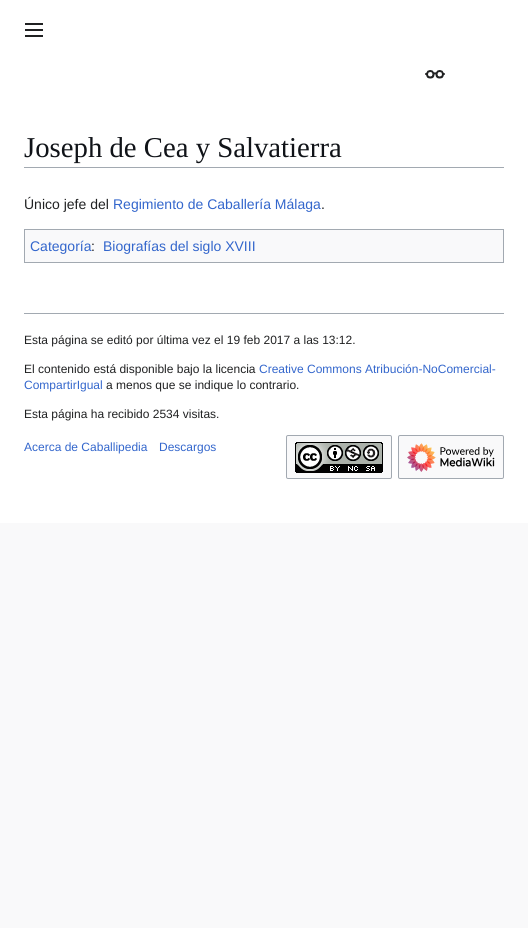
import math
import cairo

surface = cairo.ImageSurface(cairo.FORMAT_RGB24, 528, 928)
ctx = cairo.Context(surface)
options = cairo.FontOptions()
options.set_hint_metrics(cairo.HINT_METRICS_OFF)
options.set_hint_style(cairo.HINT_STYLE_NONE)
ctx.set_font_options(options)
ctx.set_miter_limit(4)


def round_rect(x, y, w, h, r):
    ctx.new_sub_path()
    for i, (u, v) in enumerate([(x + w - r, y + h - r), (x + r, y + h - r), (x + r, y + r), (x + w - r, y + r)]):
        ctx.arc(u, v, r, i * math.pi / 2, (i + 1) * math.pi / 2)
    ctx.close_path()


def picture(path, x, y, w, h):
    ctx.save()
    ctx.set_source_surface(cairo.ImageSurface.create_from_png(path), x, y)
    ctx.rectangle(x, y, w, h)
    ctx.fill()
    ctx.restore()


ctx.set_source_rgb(0.973, 0.976, 0.98)
ctx.paint()
ctx.set_source_rgb(1, 1, 1)
ctx.rectangle(0, 0, 528, 523)
ctx.fill()
picture("img1.png", 25, 23, 18, 14)
picture("img2.png", 425, 70, 20, 9)
ctx.select_font_face("Liberation Serif")
ctx.set_font_size(28.75)
ctx.set_source_rgb(0.063, 0.078, 0.094)
ctx.move_to(24, 157)
ctx.show_text("Joseph de Cea y Salvatierra")
ctx.set_source_rgb(0.635, 0.663, 0.694)
ctx.rectangle(24, 167, 480, 1)
ctx.fill()
ctx.select_font_face("Liberation Sans")
ctx.set_font_size(14)
ctx.set_source_rgb(0.125, 0.129, 0.133)
ctx.move_to(24, 209)
ctx.show_text("Único jefe del")
ctx.set_source_rgb(0.2, 0.4, 0.8)
ctx.move_to(113, 209)
ctx.show_text("Regimiento de Caballería Málaga")
ctx.set_source_rgb(0.125, 0.129, 0.133)
ctx.move_to(321, 209)
ctx.show_text(".")
ctx.set_source_rgb(0.973, 0.976, 0.98)
ctx.rectangle(24.5, 229.5, 479, 33)
ctx.fill_preserve()
ctx.set_source_rgb(0.635, 0.663, 0.694)
ctx.set_line_width(1)
ctx.stroke()
ctx.set_source_rgb(0.2, 0.4, 0.8)
ctx.move_to(30, 251)
ctx.show_text("Categoría")
ctx.set_source_rgb(0.125, 0.129, 0.133)
ctx.move_to(91, 251)
ctx.show_text(":")
ctx.set_source_rgb(0.2, 0.4, 0.8)
ctx.move_to(103, 251)
ctx.show_text("Biografías del siglo XVIII")
ctx.set_source_rgb(0.635, 0.663, 0.694)
ctx.rectangle(24, 313, 480, 1)
ctx.fill()
ctx.set_font_size(12)
ctx.set_source_rgb(0.125, 0.129, 0.133)
ctx.move_to(24, 344)
ctx.show_text("Esta página se editó por última vez el 19 feb 2017 a las 13:12.")
ctx.move_to(24, 373)
ctx.show_text("El contenido está disponible bajo la licencia")
ctx.set_source_rgb(0.2, 0.4, 0.8)
ctx.move_to(259, 373)
ctx.show_text("Creative Commons Atribución-NoComercial-")
ctx.move_to(24, 389)
ctx.show_text("CompartirIgual")
ctx.set_source_rgb(0.125, 0.129, 0.133)
ctx.move_to(106, 389)
ctx.show_text("a menos que se indique lo contrario.")
ctx.move_to(24, 418)
ctx.show_text("Esta página ha recibido 2534 visitas.")
ctx.set_source_rgb(0.2, 0.4, 0.8)
ctx.move_to(24, 451)
ctx.show_text("Acerca de Caballipedia")
ctx.move_to(159, 451)
ctx.show_text("Descargos")
ctx.set_source_rgb(0.973, 0.976, 0.98)
round_rect(286.5, 435.5, 105, 43, 1.5)
ctx.fill_preserve()
ctx.set_source_rgb(0.635, 0.663, 0.694)
ctx.stroke()
picture("img3.png", 295, 442, 88, 31)
ctx.set_source_rgb(0.973, 0.976, 0.98)
round_rect(398.5, 435.5, 105, 43, 1.5)
ctx.fill_preserve()
ctx.set_source_rgb(0.635, 0.663, 0.694)
ctx.stroke()
picture("img4.png", 407, 443, 88, 29)
surface.write_to_png("page.png")
